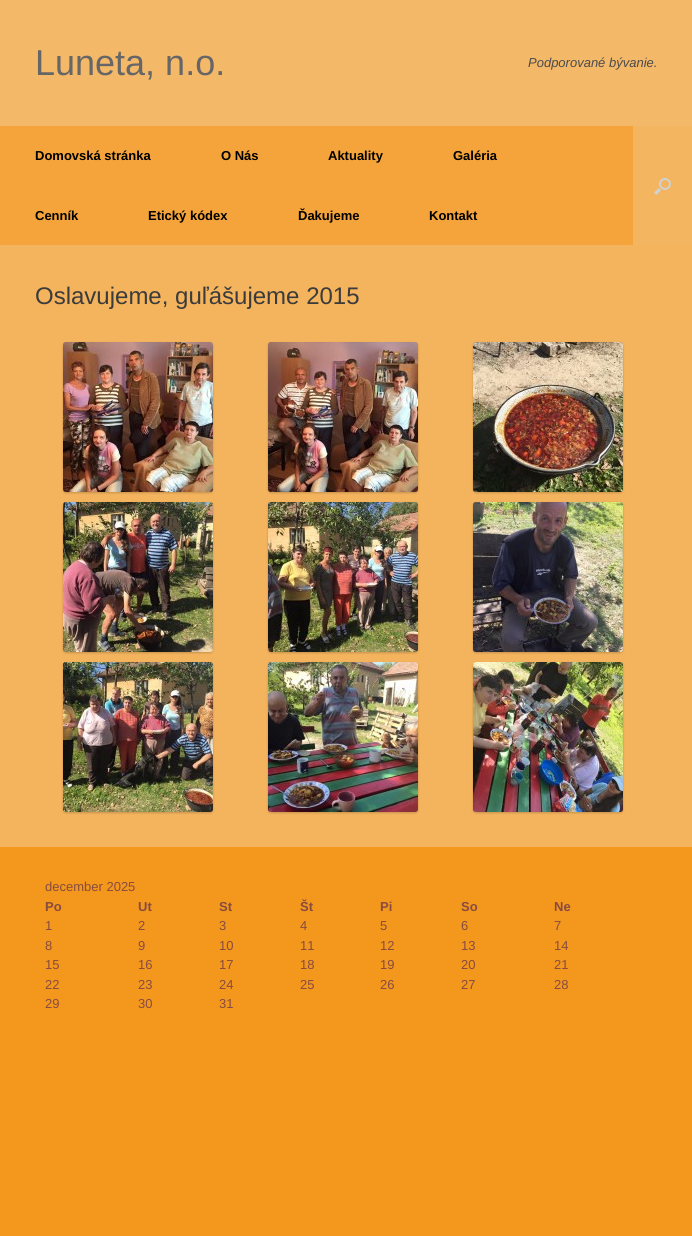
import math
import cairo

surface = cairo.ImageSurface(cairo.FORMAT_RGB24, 692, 1236)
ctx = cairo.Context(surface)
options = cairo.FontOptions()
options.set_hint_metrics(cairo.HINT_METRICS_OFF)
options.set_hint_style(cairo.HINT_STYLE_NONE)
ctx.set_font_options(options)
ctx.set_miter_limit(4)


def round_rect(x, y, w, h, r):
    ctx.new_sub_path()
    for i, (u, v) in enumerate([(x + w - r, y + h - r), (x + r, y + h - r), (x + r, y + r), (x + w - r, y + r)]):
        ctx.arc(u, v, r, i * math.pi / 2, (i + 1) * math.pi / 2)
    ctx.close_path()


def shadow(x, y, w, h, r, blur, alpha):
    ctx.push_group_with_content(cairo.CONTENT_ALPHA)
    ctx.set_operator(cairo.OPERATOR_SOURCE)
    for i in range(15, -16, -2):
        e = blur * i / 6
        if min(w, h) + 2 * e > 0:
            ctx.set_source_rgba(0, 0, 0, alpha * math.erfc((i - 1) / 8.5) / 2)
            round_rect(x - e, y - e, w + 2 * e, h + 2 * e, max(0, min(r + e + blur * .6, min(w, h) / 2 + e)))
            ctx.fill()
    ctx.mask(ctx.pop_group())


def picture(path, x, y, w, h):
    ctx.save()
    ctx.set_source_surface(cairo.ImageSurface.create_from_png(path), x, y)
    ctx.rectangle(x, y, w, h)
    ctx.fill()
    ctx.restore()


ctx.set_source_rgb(0.957, 0.592, 0.114)
ctx.paint()
ctx.set_source_rgb(0.957, 0.722, 0.412)
ctx.rectangle(0, 0, 692, 126)
ctx.fill()
ctx.select_font_face("Liberation Sans")
ctx.set_font_size(36)
ctx.set_source_rgb(0.4, 0.4, 0.4)
ctx.move_to(35, 75)
ctx.show_text("Luneta, n.o.")
ctx.select_font_face("Liberation Sans", cairo.FONT_SLANT_ITALIC)
ctx.set_font_size(13)
ctx.set_source_rgb(0.294, 0.294, 0.294)
ctx.move_to(528, 67)
ctx.show_text("Podporované bývanie.")
ctx.set_source_rgb(0.957, 0.643, 0.227)
ctx.rectangle(0, 126, 633, 119)
ctx.fill()
ctx.select_font_face("Liberation Sans", cairo.FONT_SLANT_NORMAL, cairo.FONT_WEIGHT_BOLD)
ctx.set_source_rgb(0, 0, 0)
ctx.move_to(35, 160)
ctx.show_text("Domovská stránka")
ctx.move_to(221, 160)
ctx.show_text("O Nás")
ctx.move_to(328, 160)
ctx.show_text("Aktuality")
ctx.move_to(453, 160)
ctx.show_text("Galéria")
ctx.move_to(35, 220)
ctx.show_text("Cenník")
ctx.move_to(148, 220)
ctx.show_text("Etický kódex")
ctx.move_to(298, 220)
ctx.show_text("Ďakujeme")
ctx.move_to(429, 220)
ctx.show_text("Kontakt")
ctx.set_source_rgb(0.957, 0.71, 0.38)
ctx.rectangle(633, 126, 59, 119)
ctx.fill()
picture("img1.png", 654, 178, 17, 17)
ctx.set_source_rgb(0.957, 0.702, 0.365)
ctx.rectangle(0, 245, 692, 602)
ctx.fill()
ctx.select_font_face("Liberation Sans")
ctx.set_font_size(24)
ctx.set_source_rgb(0.231, 0.231, 0.231)
ctx.move_to(35, 304)
ctx.show_text("Oslavujeme, guľášujeme 2015")
ctx.set_source_rgb(0, 0, 0)
shadow(63, 343, 150, 150, 3, 1, 0.18)
picture("img2.png", 63, 342, 150, 150)
shadow(268, 343, 150, 150, 3, 1, 0.18)
picture("img3.png", 268, 342, 150, 150)
shadow(473, 343, 150, 150, 3, 1, 0.18)
picture("img4.png", 473, 342, 150, 150)
shadow(63, 503, 150, 150, 3, 1, 0.18)
picture("img5.png", 63, 502, 150, 150)
shadow(268, 503, 150, 150, 3, 1, 0.18)
picture("img6.png", 268, 502, 150, 150)
shadow(473, 503, 150, 150, 3, 1, 0.18)
picture("img7.png", 473, 502, 150, 150)
shadow(63, 663, 150, 150, 3, 1, 0.18)
picture("img8.png", 63, 662, 150, 150)
shadow(268, 663, 150, 150, 3, 1, 0.18)
picture("img9.png", 268, 662, 150, 150)
shadow(473, 663, 150, 150, 3, 1, 0.18)
picture("img10.png", 473, 662, 150, 150)
ctx.set_font_size(13)
ctx.set_source_rgb(0.529, 0.294, 0.247)
ctx.move_to(45, 891)
ctx.show_text("december 2025")
ctx.select_font_face("Liberation Sans", cairo.FONT_SLANT_NORMAL, cairo.FONT_WEIGHT_BOLD)
ctx.move_to(45, 911)
ctx.show_text("Po")
ctx.move_to(138, 911)
ctx.show_text("Ut")
ctx.move_to(219, 911)
ctx.show_text("St")
ctx.move_to(300, 911)
ctx.show_text("Št")
ctx.move_to(380, 911)
ctx.show_text("Pi")
ctx.move_to(461, 911)
ctx.show_text("So")
ctx.move_to(554, 911)
ctx.show_text("Ne")
ctx.select_font_face("Liberation Sans")
ctx.move_to(45, 930)
ctx.show_text("1")
ctx.move_to(138, 930)
ctx.show_text("2")
ctx.move_to(219, 930)
ctx.show_text("3")
ctx.move_to(300, 930)
ctx.show_text("4")
ctx.move_to(380, 930)
ctx.show_text("5")
ctx.move_to(461, 930)
ctx.show_text("6")
ctx.move_to(554, 930)
ctx.show_text("7")
ctx.move_to(45, 950)
ctx.show_text("8")
ctx.move_to(138, 950)
ctx.show_text("9")
ctx.move_to(219, 950)
ctx.show_text("10")
ctx.move_to(300, 950)
ctx.show_text("11")
ctx.move_to(380, 950)
ctx.show_text("12")
ctx.move_to(461, 950)
ctx.show_text("13")
ctx.move_to(554, 950)
ctx.show_text("14")
ctx.move_to(45, 969)
ctx.show_text("15")
ctx.move_to(138, 969)
ctx.show_text("16")
ctx.move_to(219, 969)
ctx.show_text("17")
ctx.move_to(300, 969)
ctx.show_text("18")
ctx.move_to(380, 969)
ctx.show_text("19")
ctx.move_to(461, 969)
ctx.show_text("20")
ctx.move_to(554, 969)
ctx.show_text("21")
ctx.move_to(45, 989)
ctx.show_text("22")
ctx.move_to(138, 989)
ctx.show_text("23")
ctx.move_to(219, 989)
ctx.show_text("24")
ctx.move_to(300, 989)
ctx.show_text("25")
ctx.move_to(380, 989)
ctx.show_text("26")
ctx.move_to(461, 989)
ctx.show_text("27")
ctx.move_to(554, 989)
ctx.show_text("28")
ctx.move_to(45, 1008)
ctx.show_text("29")
ctx.move_to(138, 1008)
ctx.show_text("30")
ctx.move_to(219, 1008)
ctx.show_text("31")
surface.write_to_png("page.png")
